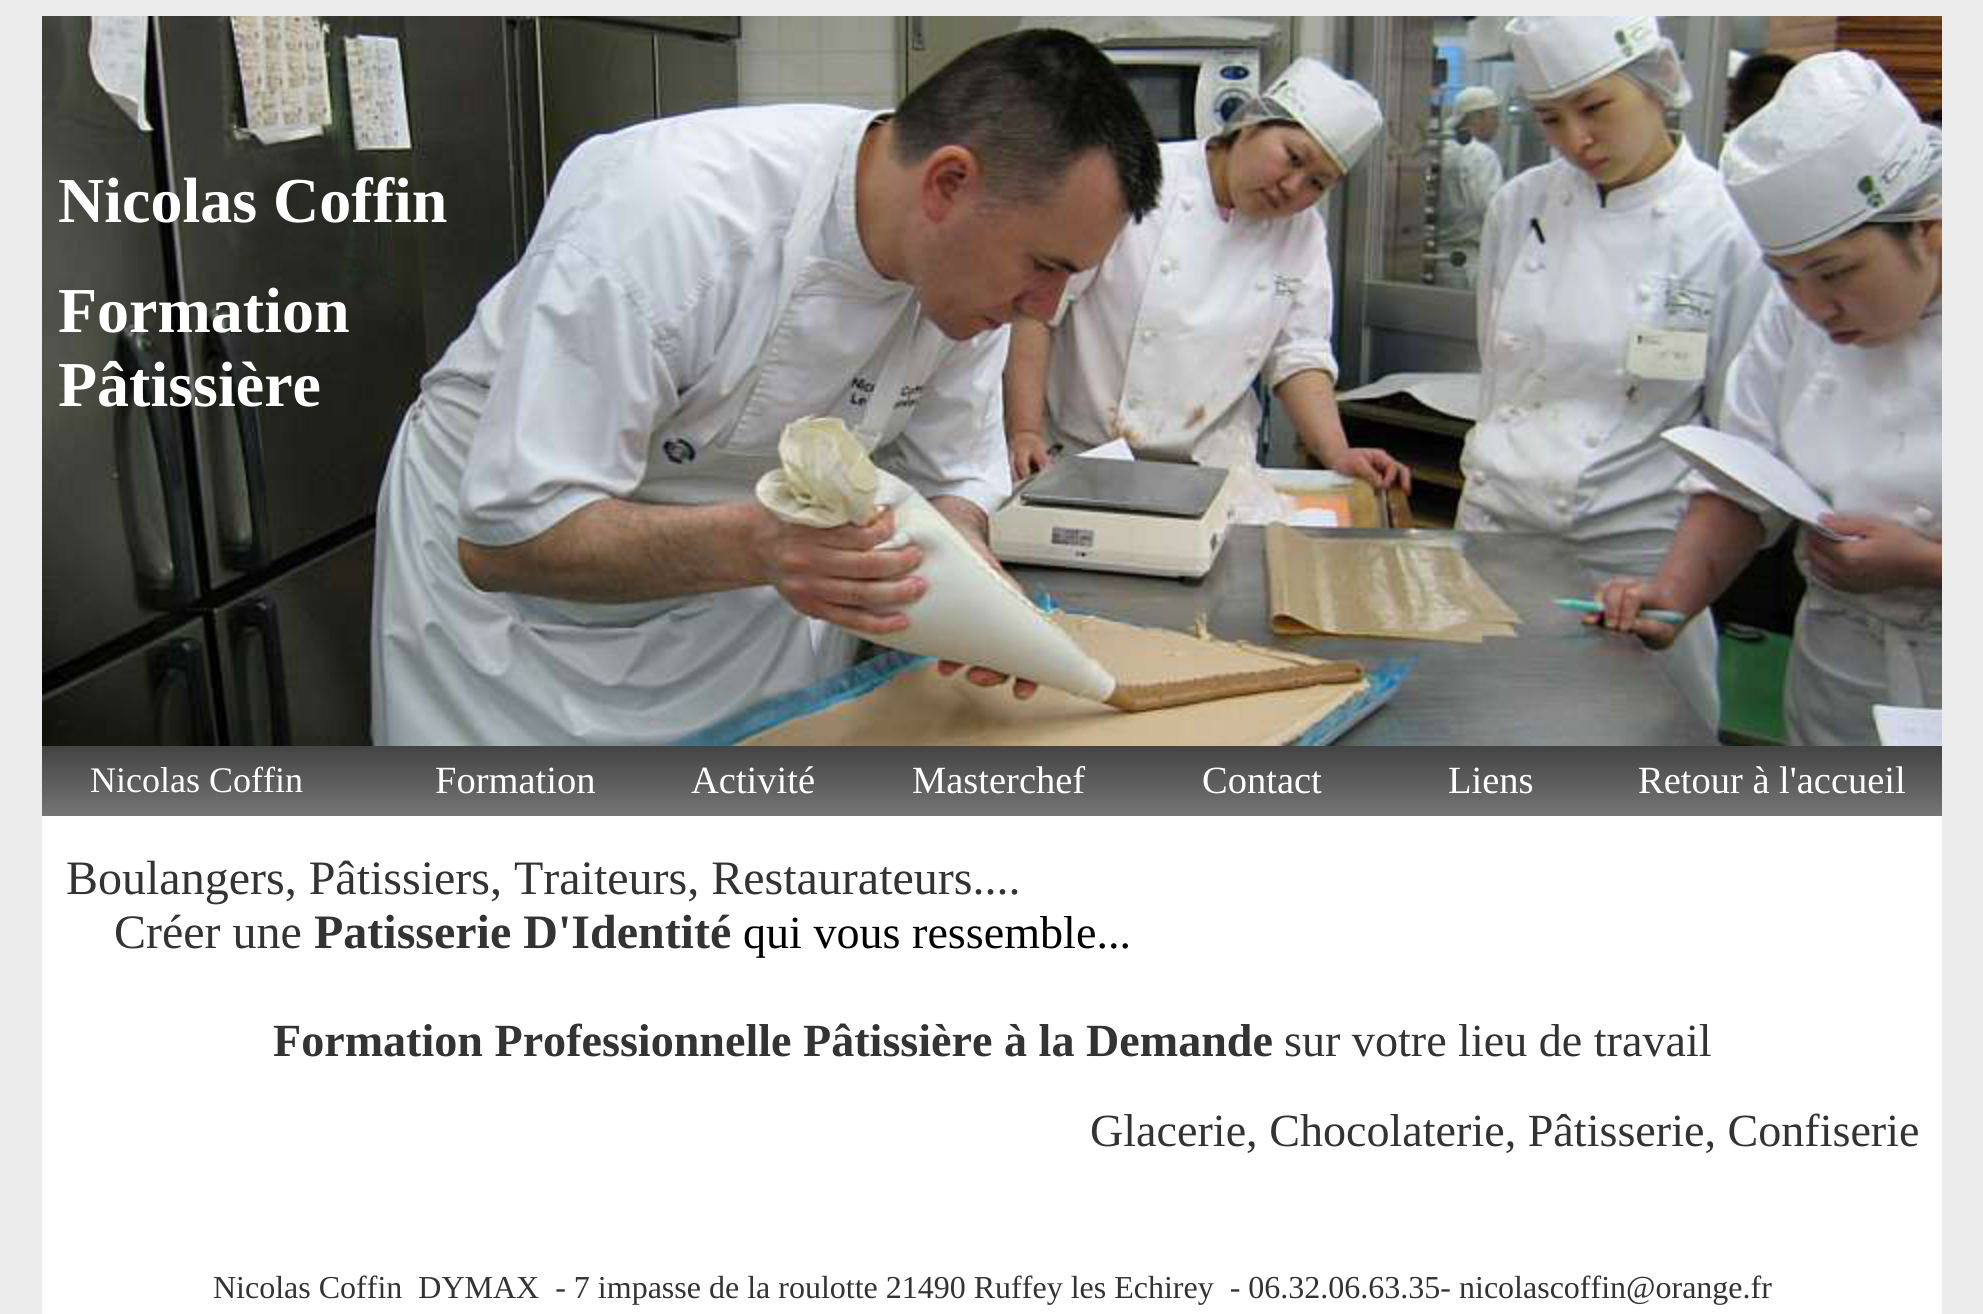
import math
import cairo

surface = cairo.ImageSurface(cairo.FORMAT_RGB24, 1983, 1314)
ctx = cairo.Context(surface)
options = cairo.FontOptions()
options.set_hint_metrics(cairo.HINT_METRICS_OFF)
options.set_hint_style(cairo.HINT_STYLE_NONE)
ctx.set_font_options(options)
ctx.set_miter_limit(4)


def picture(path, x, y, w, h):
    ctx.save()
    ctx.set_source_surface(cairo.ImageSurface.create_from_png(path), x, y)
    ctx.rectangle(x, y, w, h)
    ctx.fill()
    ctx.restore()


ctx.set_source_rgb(0.922, 0.922, 0.922)
ctx.paint()
ctx.set_source_rgb(1, 1, 1)
ctx.rectangle(42, 816, 1900, 498)
ctx.fill()
picture("img1.png", 42, 16, 1900, 730)
ctx.select_font_face("Liberation Serif", cairo.FONT_SLANT_NORMAL, cairo.FONT_WEIGHT_BOLD)
ctx.set_font_size(64)
ctx.move_to(58, 222)
ctx.show_text("Nicolas Coffin")
ctx.move_to(58, 332)
ctx.show_text("Formation")
ctx.move_to(58, 406)
ctx.show_text("Pâtissière")
picture("img2.png", 42, 746, 1900, 70)
ctx.select_font_face("Liberation Serif")
ctx.set_font_size(36)
ctx.move_to(90, 792)
ctx.show_text("Nicolas Coffin")
ctx.set_font_size(38.5)
ctx.move_to(435, 793)
ctx.show_text("Formation")
ctx.move_to(691, 793)
ctx.show_text("Activité")
ctx.move_to(912, 793)
ctx.show_text("Masterchef")
ctx.move_to(1202, 793)
ctx.show_text("Contact")
ctx.move_to(1448, 793)
ctx.show_text("Liens")
ctx.move_to(1638, 793)
ctx.show_text("Retour à l'accueil")
ctx.set_font_size(48)
ctx.set_source_rgb(0.2, 0.2, 0.2)
ctx.move_to(66, 894)
ctx.show_text("Boulangers, Pâtissiers, Traiteurs, Restaurateurs....")
ctx.move_to(114, 948)
ctx.show_text("Créer une")
ctx.select_font_face("Liberation Serif", cairo.FONT_SLANT_NORMAL, cairo.FONT_WEIGHT_BOLD)
ctx.move_to(314, 948)
ctx.show_text("Patisserie D'Identité")
ctx.select_font_face("Liberation Serif")
ctx.set_font_size(46.1)
ctx.set_source_rgb(0, 0, 0)
ctx.move_to(743, 948)
ctx.show_text("qui vous ressemble...")
ctx.select_font_face("Liberation Serif", cairo.FONT_SLANT_NORMAL, cairo.FONT_WEIGHT_BOLD)
ctx.set_source_rgb(0.2, 0.2, 0.2)
ctx.move_to(273, 1056)
ctx.show_text("Formation Professionnelle Pâtissière à la Demande")
ctx.select_font_face("Liberation Serif")
ctx.move_to(1284, 1056)
ctx.show_text("sur votre lieu de travail")
ctx.move_to(1090, 1146)
ctx.show_text("Glacerie, Chocolaterie, Pâtisserie, Confiserie")
ctx.set_font_size(32)
ctx.move_to(213, 1298)
ctx.show_text("Nicolas Coffin  DYMAX  - 7 impasse de la roulotte 21490 Ruffey les Echirey  - 06.32.06.63.35- nicolascoffin@orange.fr")
surface.write_to_png("page.png")
